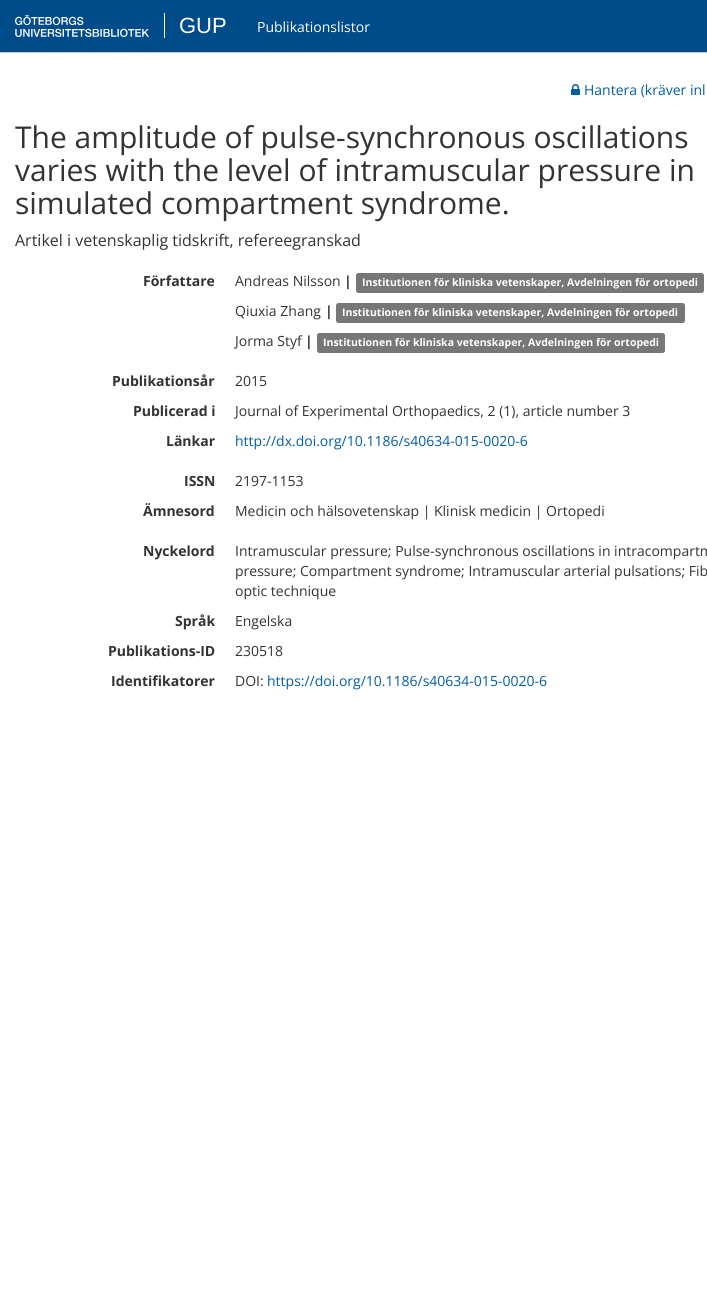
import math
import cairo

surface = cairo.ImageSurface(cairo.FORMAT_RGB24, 707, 1306)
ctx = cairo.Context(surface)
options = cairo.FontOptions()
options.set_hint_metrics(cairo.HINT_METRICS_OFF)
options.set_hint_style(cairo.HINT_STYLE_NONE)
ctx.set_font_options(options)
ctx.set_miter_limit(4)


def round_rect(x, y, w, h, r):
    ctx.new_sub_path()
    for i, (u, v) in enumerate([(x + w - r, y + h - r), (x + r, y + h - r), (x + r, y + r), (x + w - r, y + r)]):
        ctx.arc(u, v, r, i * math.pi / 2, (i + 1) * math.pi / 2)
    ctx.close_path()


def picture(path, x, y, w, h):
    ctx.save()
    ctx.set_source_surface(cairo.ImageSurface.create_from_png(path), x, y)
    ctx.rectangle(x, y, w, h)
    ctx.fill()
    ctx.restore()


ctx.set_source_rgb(1, 1, 1)
ctx.paint()
ctx.set_source_rgb(0, 0.294, 0.537)
ctx.rectangle(0, 0, 707, 52)
ctx.fill()
ctx.set_source_rgb(0.8, 0.8, 0.8)
ctx.rectangle(0, 52, 707, 1)
ctx.fill()
picture("img1.png", 15, 15, 134, 22)
ctx.set_source_rgb(1, 1, 1)
ctx.rectangle(164, 13, 1, 25)
ctx.fill()
ctx.select_font_face("Liberation Sans")
ctx.set_font_size(22)
ctx.move_to(179, 33)
ctx.show_text("GUP")
ctx.select_font_face("Open Sans")
ctx.set_font_size(14)
ctx.move_to(257, 32)
ctx.show_text("Publikationslistor")
picture("img2.png", 571, 84, 9, 11)
ctx.set_source_rgb(0.008, 0.365, 0.651)
ctx.move_to(584, 95)
ctx.show_text("Hantera (kräver inl")
ctx.set_font_size(30)
ctx.set_source_rgb(0.2, 0.2, 0.2)
ctx.move_to(15, 148)
ctx.show_text("The amplitude of pulse-synchronous oscillations")
ctx.move_to(15, 181)
ctx.show_text("varies with the level of intramuscular pressure in")
ctx.move_to(15, 214)
ctx.show_text("simulated compartment syndrome.")
ctx.set_font_size(16)
ctx.move_to(15, 246)
ctx.show_text("Artikel i vetenskaplig tidskrift, refereegranskad")
ctx.select_font_face("Open Sans", cairo.FONT_SLANT_NORMAL, cairo.FONT_WEIGHT_BOLD)
ctx.set_font_size(14)
ctx.move_to(143, 286)
ctx.show_text("Författare")
ctx.select_font_face("Open Sans")
ctx.move_to(235, 286)
ctx.show_text("Andreas Nilsson")
ctx.select_font_face("Open Sans", cairo.FONT_SLANT_NORMAL, cairo.FONT_WEIGHT_BOLD)
ctx.move_to(344, 286)
ctx.show_text("|")
ctx.set_source_rgb(0.467, 0.467, 0.467)
round_rect(356, 273, 348, 20, 2.5)
ctx.fill()
ctx.set_font_size(10.5)
ctx.set_source_rgb(1, 1, 1)
ctx.move_to(362, 286)
ctx.show_text("Institutionen för kliniska vetenskaper, Avdelningen för ortopedi")
ctx.select_font_face("Open Sans")
ctx.set_font_size(14)
ctx.set_source_rgb(0.2, 0.2, 0.2)
ctx.move_to(235, 316)
ctx.show_text("Qiuxia Zhang")
ctx.select_font_face("Open Sans", cairo.FONT_SLANT_NORMAL, cairo.FONT_WEIGHT_BOLD)
ctx.move_to(325, 316)
ctx.show_text("|")
ctx.set_source_rgb(0.467, 0.467, 0.467)
round_rect(336, 303, 349, 20, 2.5)
ctx.fill()
ctx.set_font_size(10.5)
ctx.set_source_rgb(1, 1, 1)
ctx.move_to(342, 316)
ctx.show_text("Institutionen för kliniska vetenskaper, Avdelningen för ortopedi")
ctx.select_font_face("Open Sans")
ctx.set_font_size(14)
ctx.set_source_rgb(0.2, 0.2, 0.2)
ctx.move_to(235, 346)
ctx.show_text("Jorma Styf")
ctx.select_font_face("Open Sans", cairo.FONT_SLANT_NORMAL, cairo.FONT_WEIGHT_BOLD)
ctx.move_to(305, 346)
ctx.show_text("|")
ctx.set_source_rgb(0.467, 0.467, 0.467)
round_rect(317, 333, 348, 20, 2.5)
ctx.fill()
ctx.set_font_size(10.5)
ctx.set_source_rgb(1, 1, 1)
ctx.move_to(323, 346)
ctx.show_text("Institutionen för kliniska vetenskaper, Avdelningen för ortopedi")
ctx.set_font_size(14)
ctx.set_source_rgb(0.2, 0.2, 0.2)
ctx.move_to(112, 386)
ctx.show_text("Publikationsår")
ctx.select_font_face("Open Sans")
ctx.move_to(235, 386)
ctx.show_text("2015")
ctx.select_font_face("Open Sans", cairo.FONT_SLANT_NORMAL, cairo.FONT_WEIGHT_BOLD)
ctx.move_to(133, 416)
ctx.show_text("Publicerad i")
ctx.select_font_face("Open Sans")
ctx.move_to(235, 416)
ctx.show_text("Journal of Experimental Orthopaedics, 2 (1), article number 3")
ctx.select_font_face("Open Sans", cairo.FONT_SLANT_NORMAL, cairo.FONT_WEIGHT_BOLD)
ctx.move_to(166, 446)
ctx.show_text("Länkar")
ctx.select_font_face("Open Sans")
ctx.set_source_rgb(0.008, 0.365, 0.651)
ctx.move_to(235, 446)
ctx.show_text("http://dx.doi.org/10.1186/s40634-015-0020-6")
ctx.select_font_face("Open Sans", cairo.FONT_SLANT_NORMAL, cairo.FONT_WEIGHT_BOLD)
ctx.set_source_rgb(0.2, 0.2, 0.2)
ctx.move_to(184, 486)
ctx.show_text("ISSN")
ctx.select_font_face("Open Sans")
ctx.move_to(235, 486)
ctx.show_text("2197-1153")
ctx.select_font_face("Open Sans", cairo.FONT_SLANT_NORMAL, cairo.FONT_WEIGHT_BOLD)
ctx.move_to(143, 516)
ctx.show_text("Ämnesord")
ctx.select_font_face("Open Sans")
ctx.move_to(235, 516)
ctx.show_text("Medicin och hälsovetenskap | Klinisk medicin | Ortopedi")
ctx.select_font_face("Open Sans", cairo.FONT_SLANT_NORMAL, cairo.FONT_WEIGHT_BOLD)
ctx.move_to(143, 556)
ctx.show_text("Nyckelord")
ctx.select_font_face("Open Sans")
ctx.move_to(235, 556)
ctx.show_text("Intramuscular pressure; Pulse-synchronous oscillations in intracompartm")
ctx.move_to(235, 576)
ctx.show_text("pressure; Compartment syndrome; Intramuscular arterial pulsations; Fib")
ctx.move_to(235, 596)
ctx.show_text("optic technique")
ctx.select_font_face("Open Sans", cairo.FONT_SLANT_NORMAL, cairo.FONT_WEIGHT_BOLD)
ctx.move_to(175, 626)
ctx.show_text("Språk")
ctx.select_font_face("Open Sans")
ctx.move_to(235, 626)
ctx.show_text("Engelska")
ctx.select_font_face("Open Sans", cairo.FONT_SLANT_NORMAL, cairo.FONT_WEIGHT_BOLD)
ctx.move_to(108, 656)
ctx.show_text("Publikations-ID")
ctx.select_font_face("Open Sans")
ctx.move_to(235, 656)
ctx.show_text("230518")
ctx.select_font_face("Open Sans", cairo.FONT_SLANT_NORMAL, cairo.FONT_WEIGHT_BOLD)
ctx.move_to(111, 686)
ctx.show_text("Identifikatorer")
ctx.select_font_face("Open Sans")
ctx.move_to(235, 686)
ctx.show_text("DOI:")
ctx.set_source_rgb(0.008, 0.365, 0.651)
ctx.move_to(267, 686)
ctx.show_text("https://doi.org/10.1186/s40634-015-0020-6")
surface.write_to_png("page.png")
